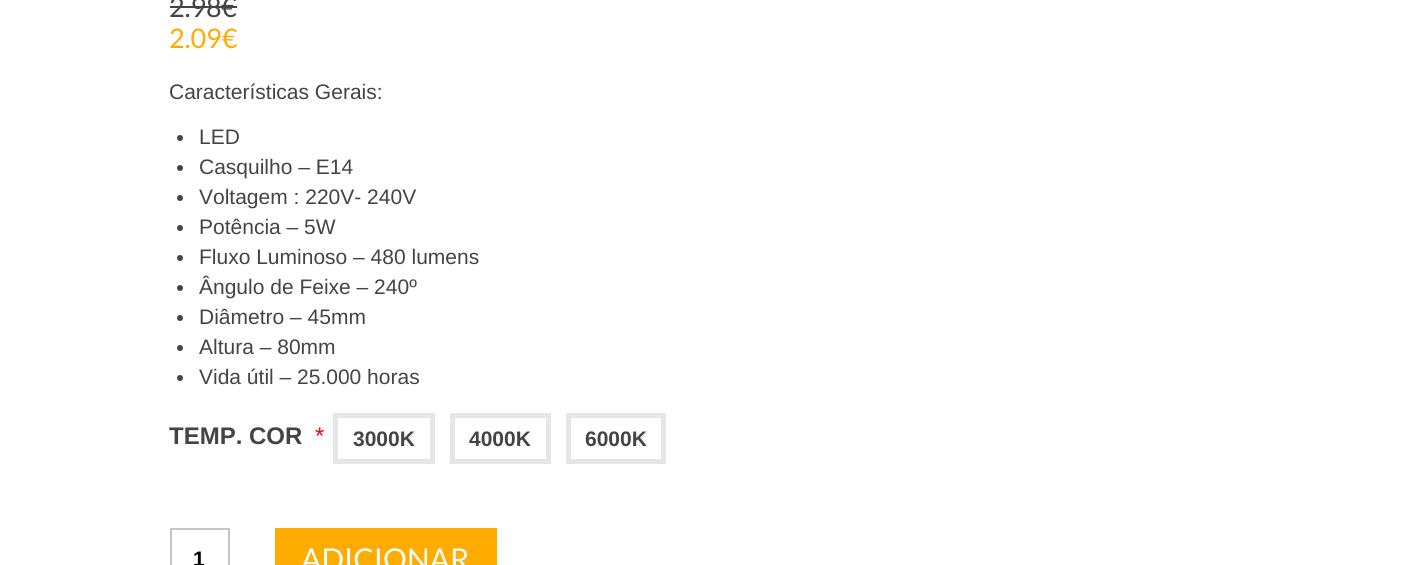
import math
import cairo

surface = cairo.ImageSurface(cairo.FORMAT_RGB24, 1417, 565)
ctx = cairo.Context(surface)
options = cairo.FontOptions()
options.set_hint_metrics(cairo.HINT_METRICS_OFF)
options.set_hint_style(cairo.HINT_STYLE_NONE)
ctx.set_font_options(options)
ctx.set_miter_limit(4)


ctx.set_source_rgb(1, 1, 1)
ctx.paint()
ctx.select_font_face("Lato")
ctx.set_font_size(27)
ctx.set_source_rgb(0.267, 0.267, 0.267)
ctx.move_to(169, 17)
ctx.show_text("2.98")
ctx.rectangle(170, 6, 52, 2)
ctx.fill()
ctx.move_to(221, 17)
ctx.show_text("€")
ctx.rectangle(222, 6, 15, 2)
ctx.fill()
ctx.set_source_rgb(1, 0.675, 0)
ctx.move_to(169, 48)
ctx.show_text("2.09€")
ctx.select_font_face("Liberation Sans")
ctx.set_font_size(21)
ctx.set_source_rgb(0.267, 0.267, 0.267)
ctx.move_to(169, 99)
ctx.show_text("Características Gerais:")
ctx.new_path()
ctx.arc(180, 138, 3, 0, 2 * math.pi)
ctx.fill()
ctx.move_to(199, 144)
ctx.show_text("LED")
ctx.new_path()
ctx.arc(180, 168, 3, 0, 2 * math.pi)
ctx.fill()
ctx.move_to(199, 174)
ctx.show_text("Casquilho – E14")
ctx.new_path()
ctx.arc(180, 198, 3, 0, 2 * math.pi)
ctx.fill()
ctx.move_to(199, 204)
ctx.show_text("Voltagem : 220V- 240V")
ctx.new_path()
ctx.arc(180, 228, 3, 0, 2 * math.pi)
ctx.fill()
ctx.move_to(199, 234)
ctx.show_text("Potência – 5W")
ctx.new_path()
ctx.arc(180, 258, 3, 0, 2 * math.pi)
ctx.fill()
ctx.move_to(199, 264)
ctx.show_text("Fluxo Luminoso – 480 lumens")
ctx.new_path()
ctx.arc(180, 288, 3, 0, 2 * math.pi)
ctx.fill()
ctx.move_to(199, 294)
ctx.show_text("Ângulo de Feixe – 240º")
ctx.new_path()
ctx.arc(180, 318, 3, 0, 2 * math.pi)
ctx.fill()
ctx.move_to(199, 324)
ctx.show_text("Diâmetro – 45mm")
ctx.new_path()
ctx.arc(180, 348, 3, 0, 2 * math.pi)
ctx.fill()
ctx.move_to(199, 354)
ctx.show_text("Altura – 80mm")
ctx.new_path()
ctx.arc(180, 378, 3, 0, 2 * math.pi)
ctx.fill()
ctx.move_to(199, 384)
ctx.show_text("Vida útil – 25.000 horas")
ctx.select_font_face("Liberation Sans", cairo.FONT_SLANT_NORMAL, cairo.FONT_WEIGHT_BOLD)
ctx.set_font_size(24)
ctx.move_to(169, 444)
ctx.show_text("TEMP. COR")
ctx.select_font_face("Liberation Sans")
ctx.set_source_rgb(1, 0, 0)
ctx.move_to(315, 444)
ctx.show_text("*")
ctx.rectangle(335.5, 415.5, 97, 46)
ctx.set_source_rgb(0.902, 0.902, 0.902)
ctx.set_line_width(5)
ctx.stroke()
ctx.select_font_face("Liberation Sans", cairo.FONT_SLANT_NORMAL, cairo.FONT_WEIGHT_BOLD)
ctx.set_font_size(21)
ctx.set_source_rgb(0.267, 0.267, 0.267)
ctx.move_to(353, 446)
ctx.show_text("3000K")
ctx.rectangle(452.5, 415.5, 96, 46)
ctx.set_source_rgb(0.902, 0.902, 0.902)
ctx.stroke()
ctx.set_source_rgb(0.267, 0.267, 0.267)
ctx.move_to(469, 446)
ctx.show_text("4000K")
ctx.rectangle(568.5, 415.5, 95, 46)
ctx.set_source_rgb(0.902, 0.902, 0.902)
ctx.stroke()
ctx.set_source_rgb(0.267, 0.267, 0.267)
ctx.move_to(585, 446)
ctx.show_text("6000K")
ctx.rectangle(171, 529, 58, 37)
ctx.set_source_rgb(0.776, 0.776, 0.776)
ctx.set_line_width(2)
ctx.stroke()
ctx.set_source_rgb(0, 0, 0)
ctx.move_to(193, 566)
ctx.show_text("1")
ctx.set_source_rgb(1, 0.675, 0)
ctx.rectangle(275, 528, 222, 37)
ctx.fill()
ctx.select_font_face("Lato")
ctx.set_font_size(30)
ctx.set_source_rgb(1, 1, 1)
ctx.move_to(301, 570)
ctx.show_text("ADICIONAR")
surface.write_to_png("page.png")
